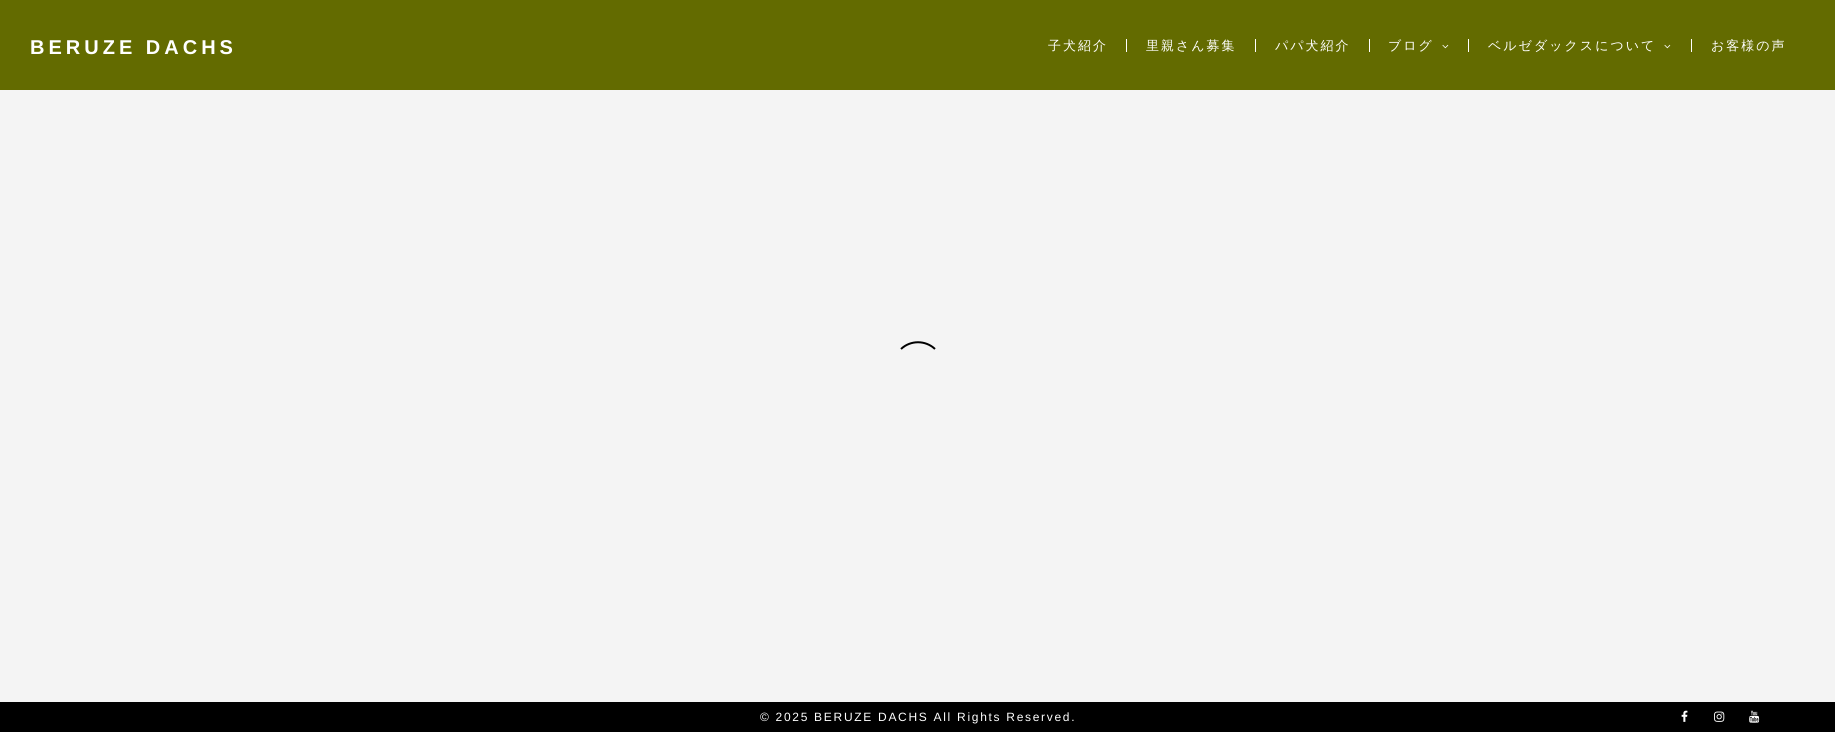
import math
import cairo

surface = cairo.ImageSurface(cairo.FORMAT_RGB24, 1835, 732)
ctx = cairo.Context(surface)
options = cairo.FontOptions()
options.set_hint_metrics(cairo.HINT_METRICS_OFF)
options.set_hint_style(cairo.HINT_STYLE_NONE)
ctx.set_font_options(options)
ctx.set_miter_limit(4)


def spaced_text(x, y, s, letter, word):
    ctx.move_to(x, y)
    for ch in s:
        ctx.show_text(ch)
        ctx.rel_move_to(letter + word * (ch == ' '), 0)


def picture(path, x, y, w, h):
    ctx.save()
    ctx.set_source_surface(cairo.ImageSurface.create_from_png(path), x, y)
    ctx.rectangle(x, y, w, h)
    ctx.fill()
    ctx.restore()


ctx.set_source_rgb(0.957, 0.957, 0.957)
ctx.paint()
ctx.set_source_rgb(0.388, 0.42, 0)
ctx.rectangle(0, 0, 1835, 90)
ctx.fill()
ctx.select_font_face("Liberation Sans", cairo.FONT_SLANT_NORMAL, cairo.FONT_WEIGHT_BOLD)
ctx.set_font_size(20)
ctx.set_source_rgb(1, 1, 1)
spaced_text(30, 54, "BERUZE DACHS", 4, 0)
ctx.rectangle(1126, 39, 1, 13)
ctx.fill()
ctx.select_font_face("WenQuanYi Zen Hei Medium")
ctx.set_font_size(13)
spaced_text(1048, 50, "子犬紹介", 2, 0)
ctx.rectangle(1255, 39, 1, 13)
ctx.fill()
spaced_text(1146, 50, "里親さん募集", 2, 0)
ctx.rectangle(1369, 39, 1, 13)
ctx.fill()
spaced_text(1275, 50, "パパ犬紹介", 2, 0)
ctx.rectangle(1468, 39, 1, 13)
ctx.fill()
spaced_text(1388, 50, "ブログ", 2, 0)
picture("img1.png", 1442, 44, 7, 5)
ctx.rectangle(1691, 39, 1, 13)
ctx.fill()
spaced_text(1488, 50, "ベルゼダックスについて", 2, 0)
picture("img1.png", 1664, 44, 7, 5)
spaced_text(1711, 50, "お客様の声", 2, 0)
ctx.set_source_rgb(0, 0, 0)
ctx.rectangle(0, 702, 1835, 30)
ctx.fill()
ctx.select_font_face("Liberation Sans")
ctx.set_font_size(12)
ctx.set_source_rgb(1, 1, 1)
spaced_text(760, 721, "© 2025 BERUZE DACHS All Rights Reserved.", 1.7, 0)
picture("img2.png", 1681, 710, 7, 12)
picture("img3.png", 1714, 711, 11, 11)
picture("img4.png", 1749, 710, 11, 13)
ctx.new_path()
ctx.move_to(901, 349)
ctx.curve_to(910.5, 340, 925.5, 340, 935, 349)
ctx.set_source_rgb(0, 0, 0)
ctx.stroke()
surface.write_to_png("page.png")
